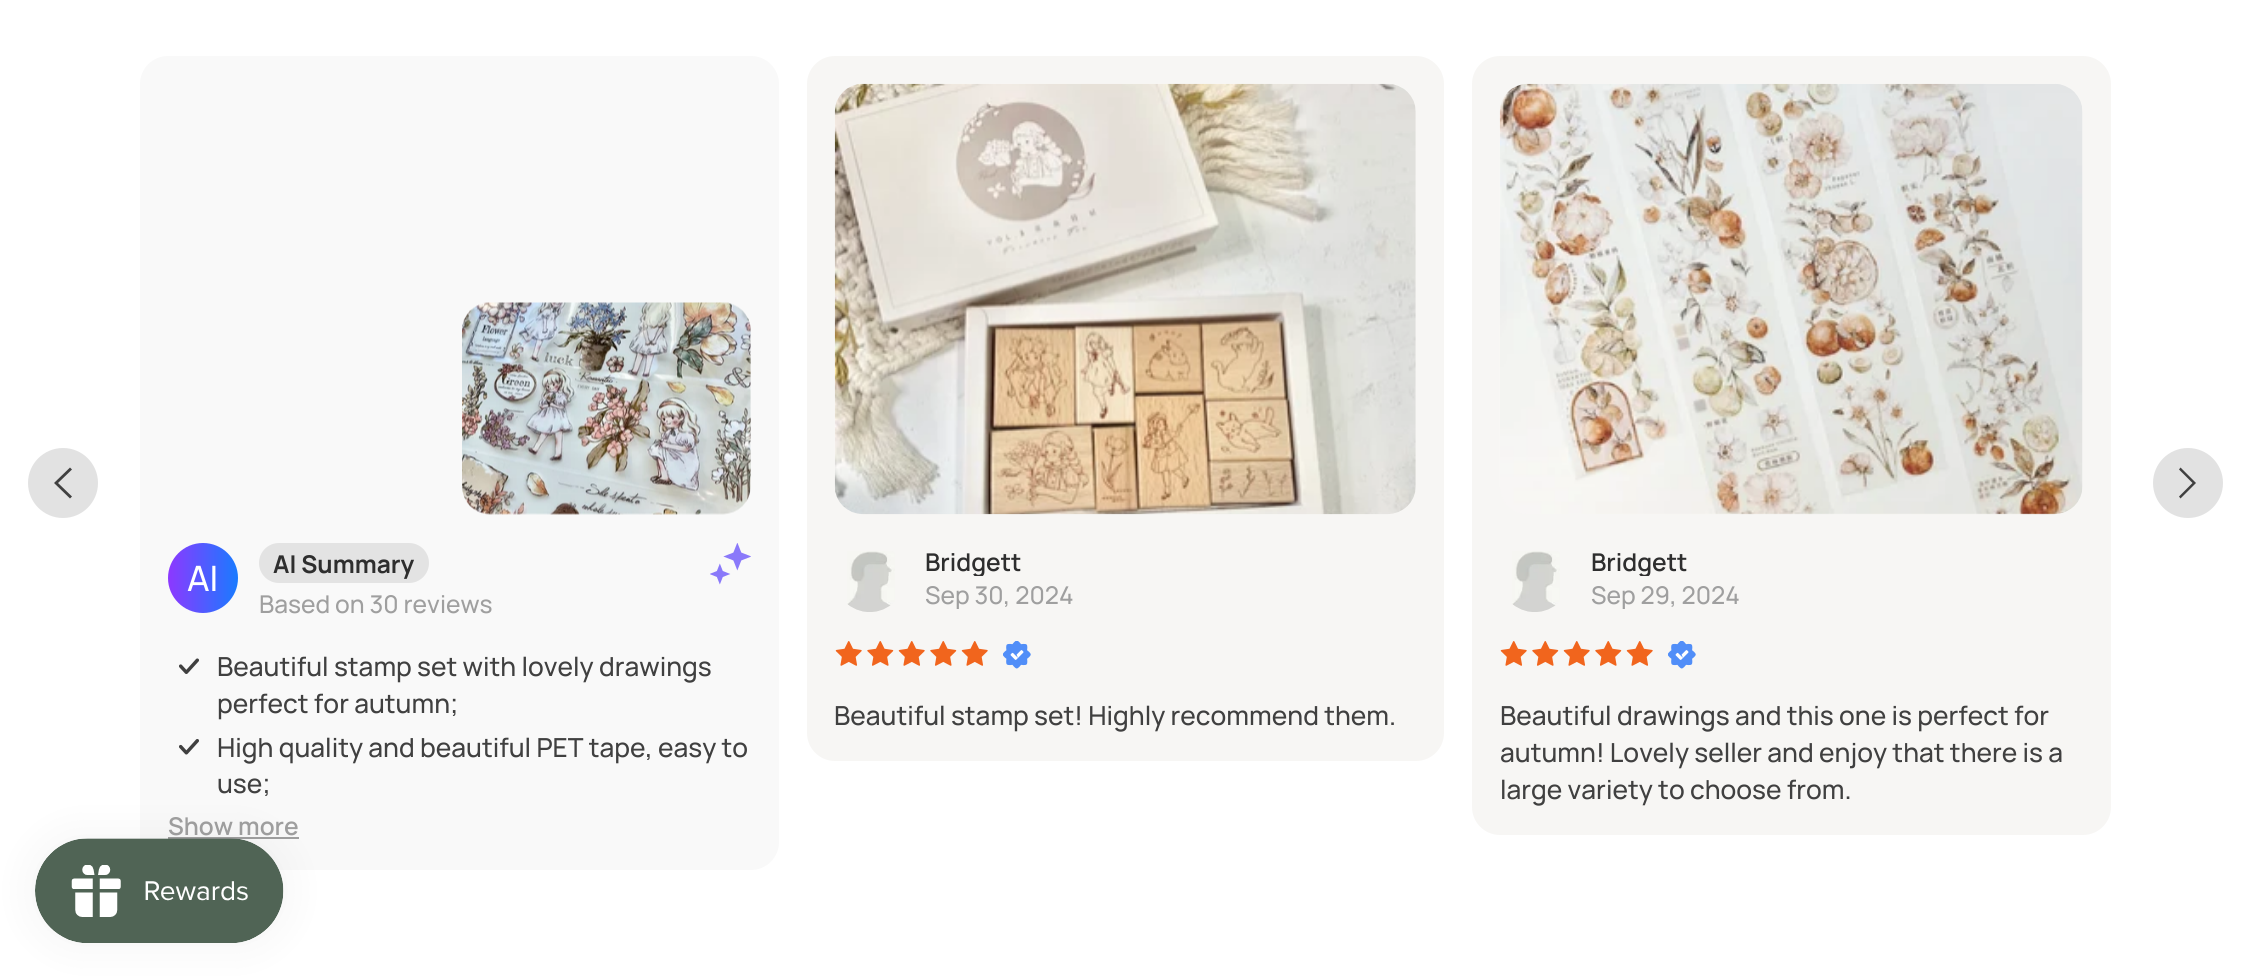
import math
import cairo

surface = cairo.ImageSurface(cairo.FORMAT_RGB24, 2249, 978)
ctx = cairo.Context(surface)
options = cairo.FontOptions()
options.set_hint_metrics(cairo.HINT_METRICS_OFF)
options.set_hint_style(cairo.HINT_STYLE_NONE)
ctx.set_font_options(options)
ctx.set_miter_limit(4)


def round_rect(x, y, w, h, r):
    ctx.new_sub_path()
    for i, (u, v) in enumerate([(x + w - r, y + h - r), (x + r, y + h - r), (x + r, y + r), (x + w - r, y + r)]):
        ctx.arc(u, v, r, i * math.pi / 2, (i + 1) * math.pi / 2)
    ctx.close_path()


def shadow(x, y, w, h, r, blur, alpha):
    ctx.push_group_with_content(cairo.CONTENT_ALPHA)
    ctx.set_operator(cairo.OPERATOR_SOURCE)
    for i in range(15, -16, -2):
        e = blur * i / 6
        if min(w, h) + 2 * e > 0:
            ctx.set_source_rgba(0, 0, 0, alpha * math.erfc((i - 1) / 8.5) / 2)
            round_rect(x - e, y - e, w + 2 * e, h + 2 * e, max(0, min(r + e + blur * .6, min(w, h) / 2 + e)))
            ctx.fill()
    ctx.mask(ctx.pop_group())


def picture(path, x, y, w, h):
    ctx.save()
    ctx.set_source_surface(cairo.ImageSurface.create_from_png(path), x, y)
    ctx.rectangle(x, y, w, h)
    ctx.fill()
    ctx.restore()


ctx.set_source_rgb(1, 1, 1)
ctx.paint()
ctx.set_source_rgb(0.886, 0.886, 0.886)
ctx.arc(63, 483, 35, 0, 2 * math.pi)
ctx.fill()
ctx.set_source_rgb(0.251, 0.251, 0.251)
ctx.new_path()
ctx.move_to(72, 496.5)
ctx.line_to(70, 498.5)
ctx.line_to(54, 483)
ctx.line_to(70, 467.5)
ctx.line_to(72, 469.5)
ctx.line_to(58, 483)
ctx.close_path()
ctx.fill()
ctx.set_source_rgb(0.886, 0.886, 0.886)
ctx.arc(2188, 483, 35, 0, 2 * math.pi)
ctx.fill()
ctx.set_source_rgb(0.251, 0.251, 0.251)
ctx.new_path()
ctx.move_to(2179, 469.5)
ctx.line_to(2180.5, 467.5)
ctx.line_to(2196, 483)
ctx.line_to(2180.5, 498.5)
ctx.line_to(2179, 496.5)
ctx.line_to(2192.5, 483)
ctx.close_path()
ctx.fill()
ctx.set_source_rgb(0.973, 0.973, 0.973)
round_rect(140, 56, 639, 814, 28)
ctx.fill()
picture("img1.png", 462, 302, 289, 213)
gradient = cairo.LinearGradient(168, 578, 238, 578)
gradient.add_color_stop_rgba(0, 0.553, 0.22, 1, 1)
gradient.add_color_stop_rgba(1, 0.098, 0.482, 1, 1)
ctx.set_source(gradient)
ctx.arc(203, 578, 35, 0, 2 * math.pi)
ctx.fill()
ctx.select_font_face("Manrope Medium")
ctx.set_font_size(35)
ctx.set_source_rgb(1, 1, 1)
ctx.move_to(187, 591)
ctx.show_text("AI")
ctx.set_source_rgb(0.89, 0.89, 0.89)
round_rect(259, 543, 170, 40, 20)
ctx.fill()
ctx.select_font_face("Manrope", cairo.FONT_SLANT_NORMAL, cairo.FONT_WEIGHT_BOLD)
ctx.set_font_size(24.5)
ctx.set_source_rgb(0.18, 0.18, 0.18)
ctx.move_to(273, 573)
ctx.show_text("AI Summary")
ctx.select_font_face("Manrope Medium")
ctx.set_source_rgb(0.624, 0.624, 0.624)
ctx.move_to(259, 613)
ctx.show_text("Based on 30 reviews")
picture("img2.png", 710, 543, 41, 42)
picture("img3.png", 179, 658, 20, 16)
ctx.set_font_size(26.25)
ctx.set_source_rgb(0.251, 0.251, 0.251)
ctx.move_to(217, 676)
ctx.show_text("Beautiful stamp set with lovely drawings")
ctx.move_to(217, 713)
ctx.show_text("perfect for autumn;")
picture("img4.png", 179, 739, 20, 16)
ctx.move_to(217, 757)
ctx.show_text("High quality and beautiful PET tape, easy to")
ctx.move_to(217, 793)
ctx.show_text("use;")
ctx.select_font_face("Manrope SemiBold")
ctx.set_font_size(24.5)
ctx.set_source_rgb(0.624, 0.624, 0.624)
ctx.move_to(168, 835)
ctx.show_text("Show more")
ctx.rectangle(168, 837, 131, 2)
ctx.fill()
ctx.set_source_rgb(0.965, 0.961, 0.957)
round_rect(807, 56, 637, 705, 28)
ctx.fill()
picture("img5.png", 834, 83, 582, 432)
picture("img6.png", 847, 551, 48, 61)
ctx.save()
ctx.rectangle(926, 546, 149, 30)
ctx.clip()
ctx.set_source_rgb(0.18, 0.18, 0.18)
ctx.move_to(925, 571)
ctx.show_text("Bridgett")
ctx.restore()
ctx.save()
ctx.rectangle(926, 546, 149, 63)
ctx.clip()
ctx.select_font_face("Manrope Medium")
ctx.set_source_rgb(0.624, 0.624, 0.624)
ctx.move_to(925, 604)
ctx.show_text("Sep 30, 2024")
ctx.restore()
picture("img7.png", 835, 641, 27, 25)
picture("img8.png", 867, 641, 27, 25)
picture("img7.png", 898, 641, 27, 25)
picture("img8.png", 930, 641, 27, 25)
picture("img7.png", 961, 641, 27, 25)
picture("img9.png", 1003, 641, 28, 28)
ctx.select_font_face("Manrope Medium")
ctx.set_font_size(26.25)
ctx.set_source_rgb(0.251, 0.251, 0.251)
ctx.move_to(834, 725)
ctx.show_text("Beautiful stamp set! Highly recommend them.")
ctx.set_source_rgb(0.965, 0.961, 0.957)
round_rect(1472, 56, 639, 779, 28)
ctx.fill()
picture("img10.png", 1499, 83, 584, 432)
picture("img6.png", 1512, 551, 48, 61)
ctx.save()
ctx.rectangle(1591, 546, 149, 30)
ctx.clip()
ctx.select_font_face("Manrope SemiBold")
ctx.set_font_size(24.5)
ctx.set_source_rgb(0.18, 0.18, 0.18)
ctx.move_to(1591, 571)
ctx.show_text("Bridgett")
ctx.restore()
ctx.save()
ctx.rectangle(1591, 546, 149, 63)
ctx.clip()
ctx.set_font_size(24.5)
ctx.set_source_rgb(0.624, 0.624, 0.624)
ctx.move_to(1591, 604)
ctx.show_text("Sep 29, 2024")
ctx.restore()
picture("img7.png", 1500, 641, 27, 25)
picture("img8.png", 1532, 641, 27, 25)
picture("img7.png", 1563, 641, 27, 25)
picture("img8.png", 1595, 641, 27, 25)
picture("img7.png", 1626, 641, 27, 25)
picture("img9.png", 1668, 641, 28, 28)
ctx.set_source_rgb(0.251, 0.251, 0.251)
ctx.move_to(1500, 725)
ctx.show_text("Beautiful drawings and this one is perfect for")
ctx.move_to(1500, 762)
ctx.show_text("autumn! Lovely seller and enjoy that there is a")
ctx.move_to(1500, 799)
ctx.show_text("large variety to choose from.")
ctx.set_source_rgb(0, 0, 0)
shadow(35, 838, 249, 105, 52.5, 22, 0.05)
picture("img11.png", 35, 838, 249, 105)
surface.write_to_png("page.png")
